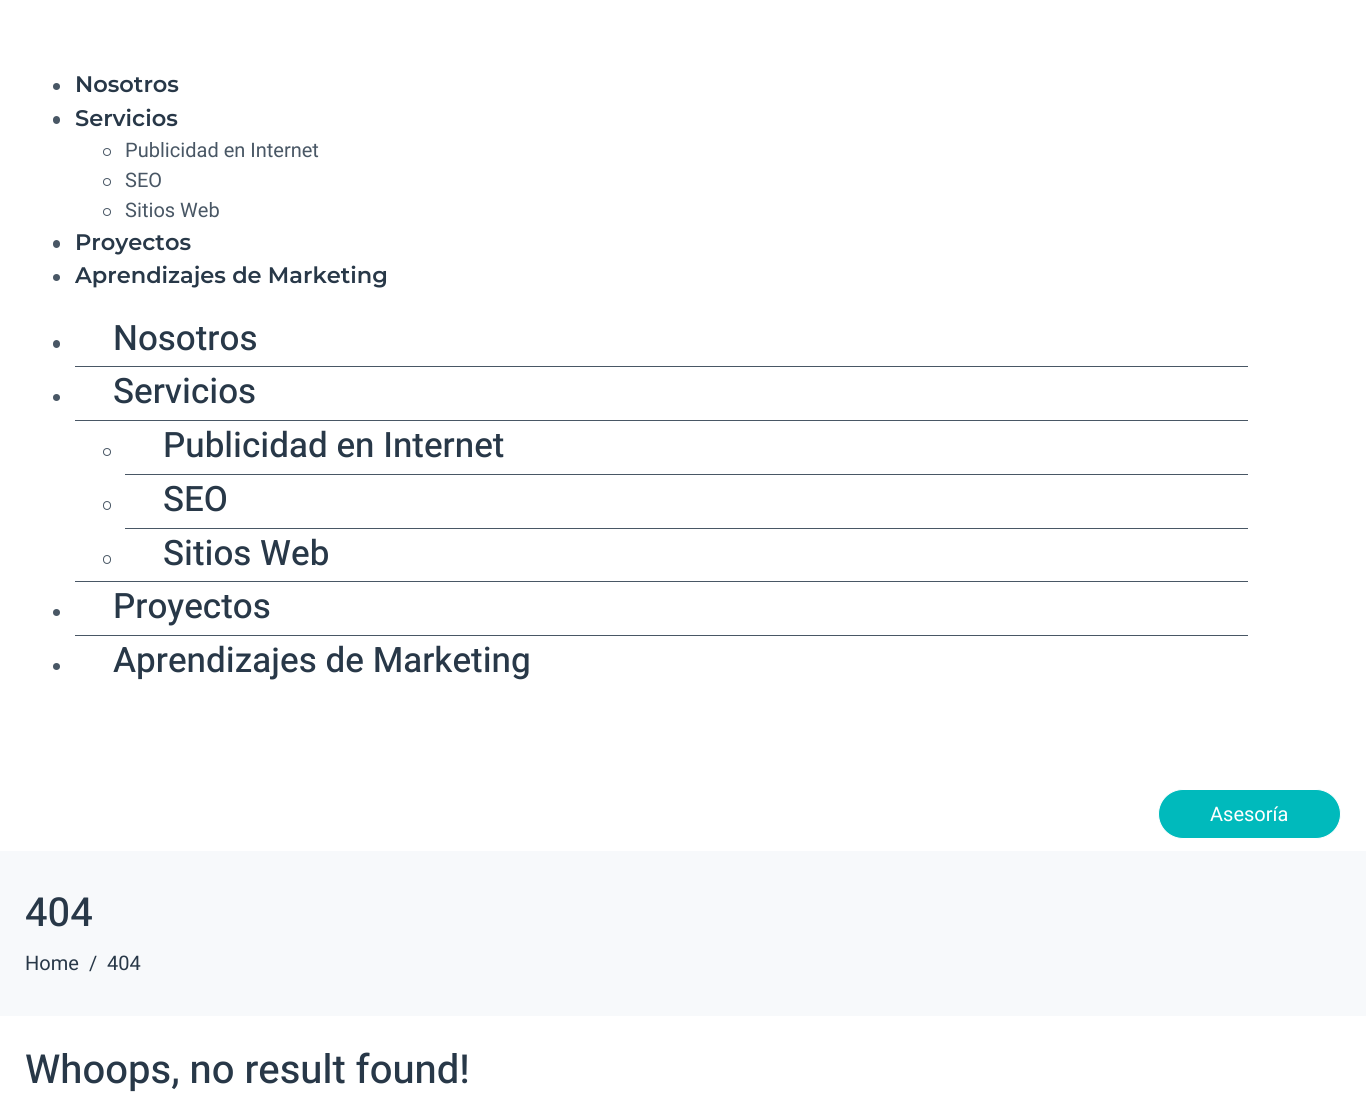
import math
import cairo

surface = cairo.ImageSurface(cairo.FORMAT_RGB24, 1366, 1120)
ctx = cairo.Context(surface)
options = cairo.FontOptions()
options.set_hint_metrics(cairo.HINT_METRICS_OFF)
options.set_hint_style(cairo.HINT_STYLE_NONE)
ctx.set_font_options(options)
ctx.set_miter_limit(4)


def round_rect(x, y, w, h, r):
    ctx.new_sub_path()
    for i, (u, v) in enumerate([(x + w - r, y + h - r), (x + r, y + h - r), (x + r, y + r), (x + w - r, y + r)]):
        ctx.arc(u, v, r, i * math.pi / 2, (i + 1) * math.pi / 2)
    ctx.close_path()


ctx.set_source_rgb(1, 1, 1)
ctx.paint()
ctx.set_source_rgb(0.286, 0.341, 0.396)
ctx.arc(56.5, 86.5, 3.5, 0, 2 * math.pi)
ctx.fill()
ctx.select_font_face("Montserrat SemiBold")
ctx.set_font_size(22.5)
ctx.set_source_rgb(0.157, 0.22, 0.282)
ctx.move_to(75, 92)
ctx.show_text("Nosotros")
ctx.set_source_rgb(0.286, 0.341, 0.396)
round_rect(53, 116, 7, 8, 3.5)
ctx.fill()
ctx.set_source_rgb(0.157, 0.22, 0.282)
ctx.move_to(75, 126)
ctx.show_text("Servicios")
ctx.new_path()
ctx.arc(107, 152, 3.5, 0, 2 * math.pi)
ctx.set_source_rgb(0.286, 0.341, 0.396)
ctx.set_line_width(1)
ctx.stroke()
ctx.select_font_face("Heebo")
ctx.set_font_size(20)
ctx.move_to(125, 157)
ctx.show_text("Publicidad en Internet")
ctx.new_path()
ctx.arc(107, 182, 3.5, 0, 2 * math.pi)
ctx.stroke()
ctx.move_to(125, 187)
ctx.show_text("SEO")
ctx.new_path()
ctx.arc(107, 212, 3.5, 0, 2 * math.pi)
ctx.stroke()
ctx.move_to(125, 217)
ctx.show_text("Sitios Web")
round_rect(53, 240, 7, 8, 3.5)
ctx.fill()
ctx.select_font_face("Montserrat SemiBold")
ctx.set_font_size(22.5)
ctx.set_source_rgb(0.157, 0.22, 0.282)
ctx.move_to(75, 250)
ctx.show_text("Proyectos")
ctx.set_source_rgb(0.286, 0.341, 0.396)
ctx.new_path()
ctx.arc(56.5, 277.5, 3.5, 0, 2 * math.pi)
ctx.fill()
ctx.set_source_rgb(0.157, 0.22, 0.282)
ctx.move_to(75, 283)
ctx.show_text("Aprendizajes de Marketing")
ctx.set_source_rgb(0.286, 0.341, 0.396)
ctx.rectangle(75, 366, 1173, 1)
ctx.fill()
round_rect(53, 340, 7, 8, 3.5)
ctx.fill()
ctx.select_font_face("Heebo Medium")
ctx.set_font_size(35)
ctx.set_source_rgb(0.157, 0.22, 0.282)
ctx.move_to(113, 350)
ctx.show_text("Nosotros")
ctx.set_source_rgb(0.286, 0.341, 0.396)
ctx.rectangle(75, 581, 1173, 1)
ctx.fill()
ctx.arc(56.5, 397.5, 3.5, 0, 2 * math.pi)
ctx.fill()
ctx.set_source_rgb(0.157, 0.22, 0.282)
ctx.move_to(113, 403)
ctx.show_text("Servicios")
ctx.set_source_rgb(0.286, 0.341, 0.396)
ctx.rectangle(75, 420, 1173, 1)
ctx.fill()
ctx.rectangle(125, 474, 1123, 1)
ctx.fill()
ctx.arc(107, 452, 3.5, 0, 2 * math.pi)
ctx.stroke()
ctx.set_source_rgb(0.157, 0.22, 0.282)
ctx.move_to(163, 457)
ctx.show_text("Publicidad en Internet")
ctx.set_source_rgb(0.286, 0.341, 0.396)
ctx.rectangle(125, 528, 1123, 1)
ctx.fill()
round_rect(103.5, 501.5, 7, 8, 3.5)
ctx.stroke()
ctx.set_source_rgb(0.157, 0.22, 0.282)
ctx.move_to(163, 511)
ctx.show_text("SEO")
round_rect(103.5, 555.5, 7, 8, 3.5)
ctx.set_source_rgb(0.286, 0.341, 0.396)
ctx.stroke()
ctx.set_source_rgb(0.157, 0.22, 0.282)
ctx.move_to(163, 565)
ctx.show_text("Sitios Web")
ctx.set_source_rgb(0.286, 0.341, 0.396)
ctx.rectangle(75, 635, 1173, 1)
ctx.fill()
ctx.arc(56.5, 612.5, 3.5, 0, 2 * math.pi)
ctx.fill()
ctx.set_source_rgb(0.157, 0.22, 0.282)
ctx.move_to(113, 618)
ctx.show_text("Proyectos")
ctx.set_source_rgb(0.286, 0.341, 0.396)
ctx.new_path()
ctx.arc(56.5, 666.5, 3.5, 0, 2 * math.pi)
ctx.fill()
ctx.set_source_rgb(0.157, 0.22, 0.282)
ctx.move_to(113, 672)
ctx.show_text("Aprendizajes de Marketing")
ctx.set_source_rgb(0, 0.729, 0.737)
round_rect(1158.5, 789.5, 182, 49, 24.5)
ctx.fill_preserve()
ctx.set_source_rgb(1, 1, 1)
ctx.stroke()
ctx.select_font_face("Heebo")
ctx.set_font_size(20)
ctx.move_to(1210, 821)
ctx.show_text("Asesoría")
ctx.set_source_rgb(0.965, 0.976, 0.984)
ctx.rectangle(0, 851, 1366, 165)
ctx.fill()
ctx.select_font_face("Heebo Medium")
ctx.set_font_size(40)
ctx.set_source_rgb(0.157, 0.22, 0.282)
ctx.move_to(25, 926)
ctx.show_text("404")
ctx.select_font_face("Heebo")
ctx.set_font_size(20)
ctx.move_to(25, 970)
ctx.show_text("Home")
ctx.move_to(89, 970)
ctx.show_text("/")
ctx.move_to(107, 970)
ctx.show_text("404")
ctx.select_font_face("Heebo Medium")
ctx.set_font_size(40)
ctx.move_to(25, 1083)
ctx.show_text("Whoops, no result found!")
surface.write_to_png("page.png")
